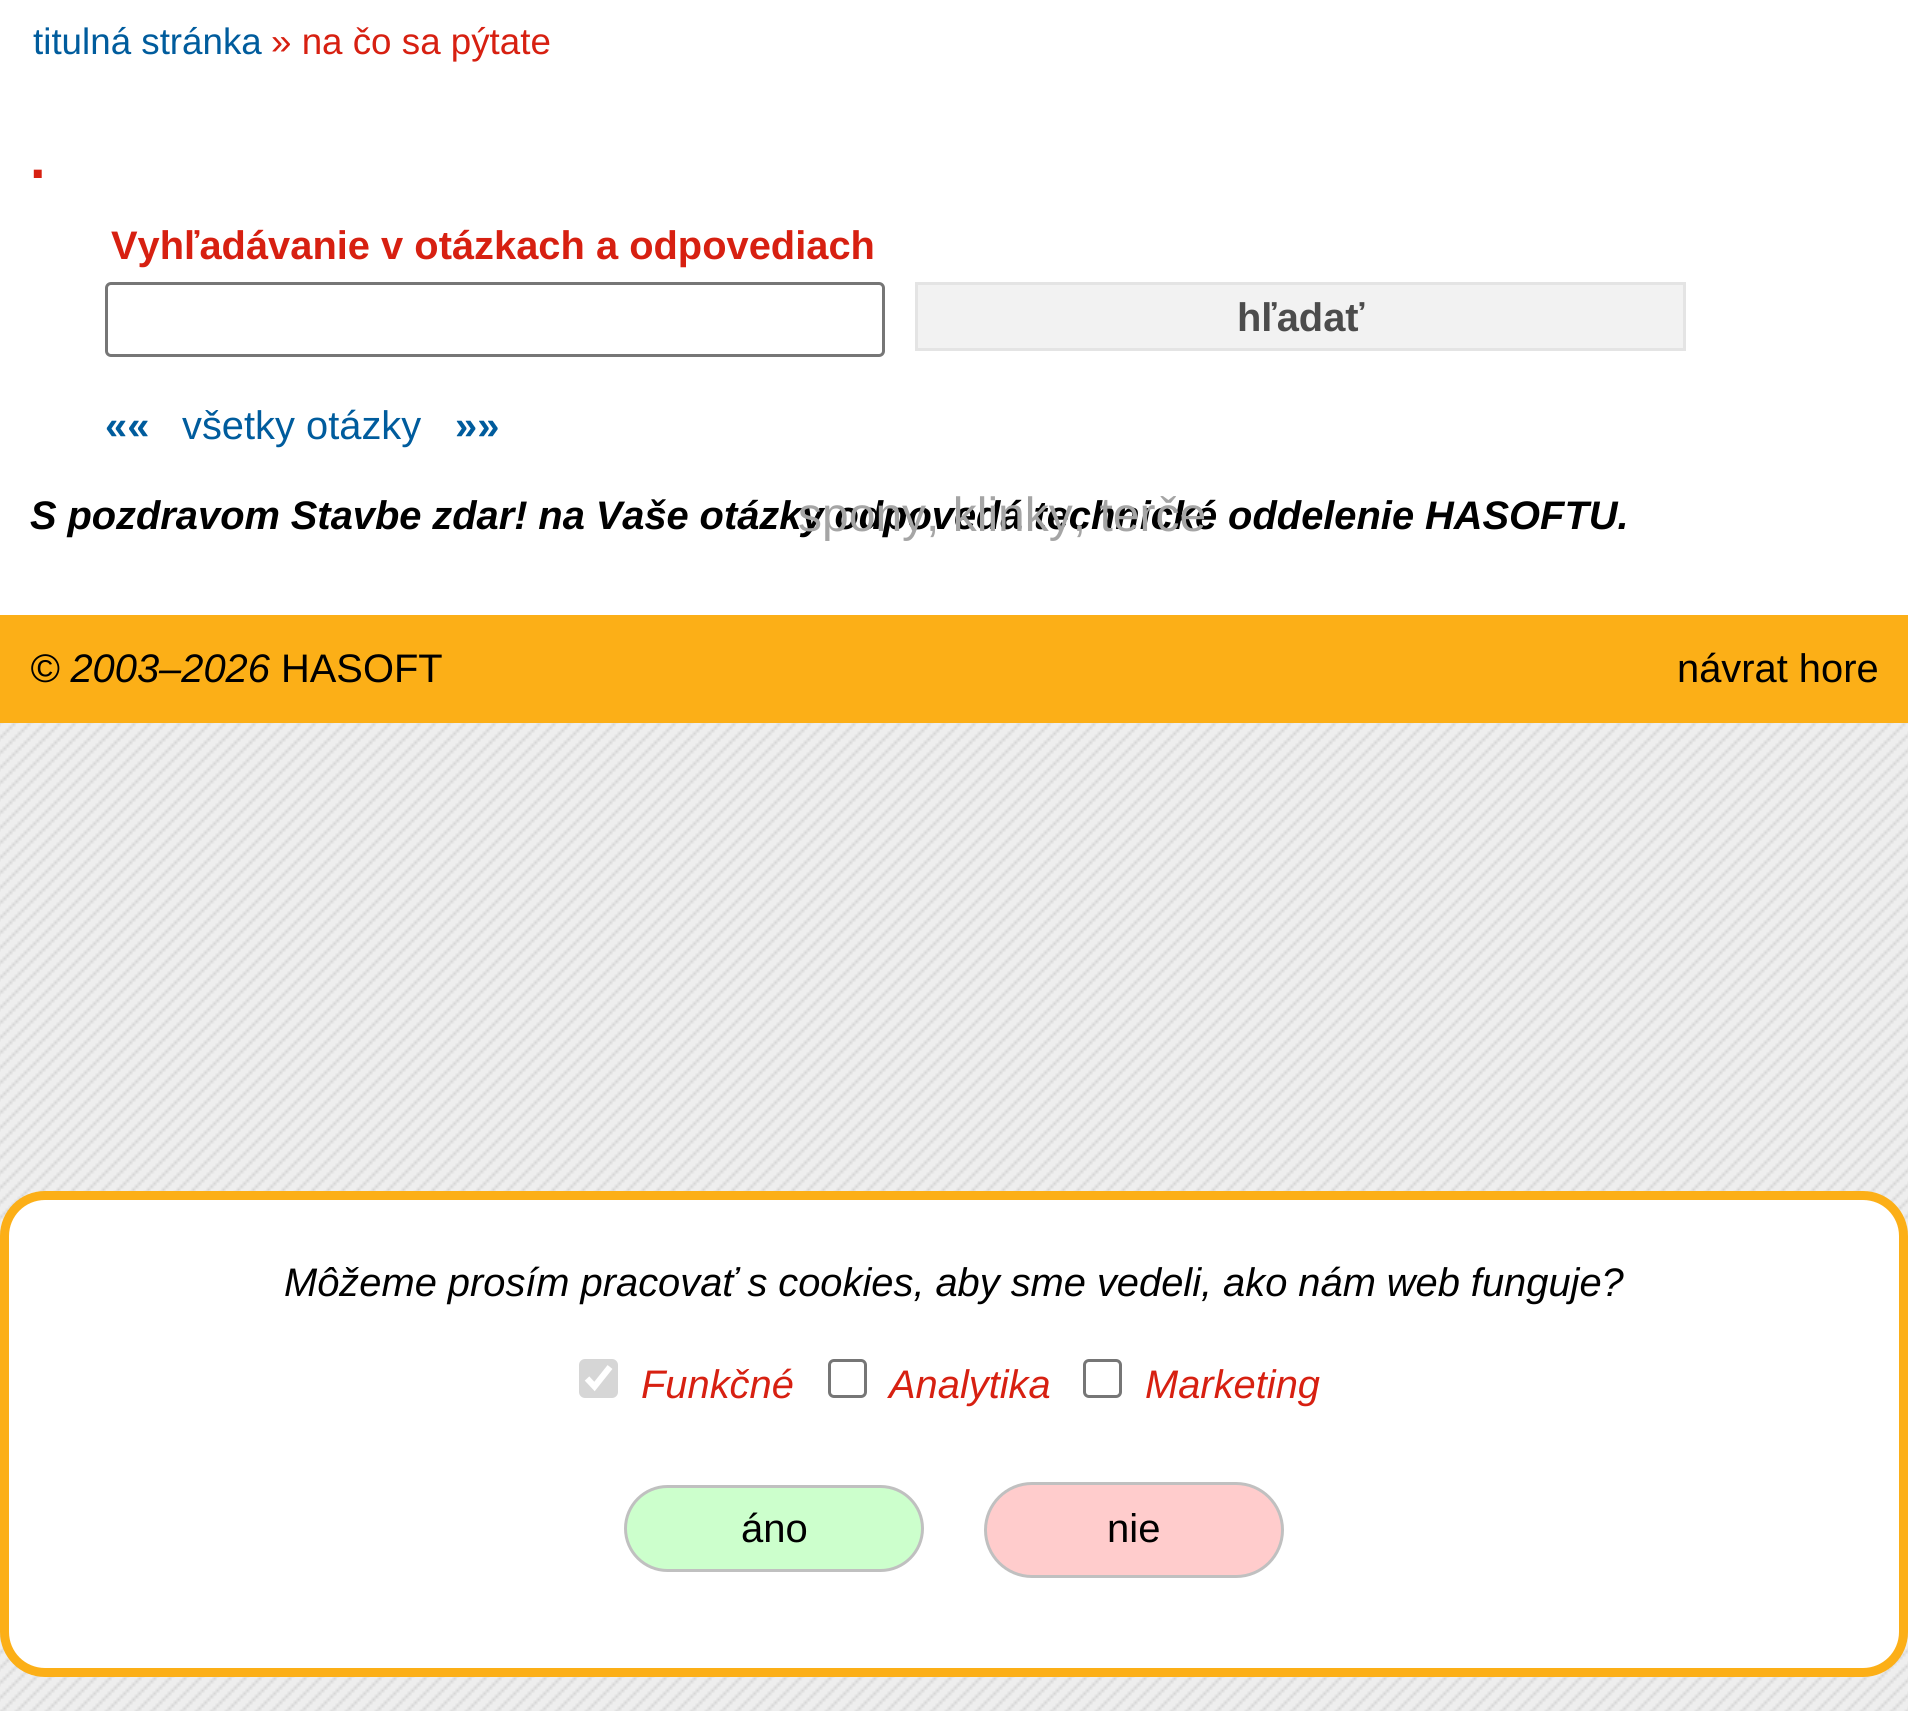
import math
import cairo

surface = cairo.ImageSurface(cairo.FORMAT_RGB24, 1908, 1711)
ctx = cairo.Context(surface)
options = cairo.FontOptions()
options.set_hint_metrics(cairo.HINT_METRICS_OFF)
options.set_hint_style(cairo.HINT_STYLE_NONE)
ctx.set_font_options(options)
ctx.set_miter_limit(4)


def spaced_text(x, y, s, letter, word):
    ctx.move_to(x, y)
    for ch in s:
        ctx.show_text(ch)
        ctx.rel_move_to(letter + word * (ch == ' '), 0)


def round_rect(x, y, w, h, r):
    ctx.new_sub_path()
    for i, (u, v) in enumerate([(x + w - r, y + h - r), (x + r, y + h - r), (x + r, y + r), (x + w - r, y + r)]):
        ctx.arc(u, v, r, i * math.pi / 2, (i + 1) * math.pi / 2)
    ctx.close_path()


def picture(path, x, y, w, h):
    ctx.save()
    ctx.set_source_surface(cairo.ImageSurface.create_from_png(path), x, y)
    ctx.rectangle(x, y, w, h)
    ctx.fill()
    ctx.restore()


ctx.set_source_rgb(1, 1, 1)
ctx.paint()
picture("img1.png", 0, 723, 1908, 988)
ctx.select_font_face("Liberation Sans")
ctx.set_font_size(36.75)
ctx.set_source_rgb(0, 0.361, 0.616)
ctx.move_to(33, 54)
ctx.show_text("titulná stránka")
ctx.set_source_rgb(0.843, 0.125, 0.067)
ctx.move_to(271, 54)
ctx.show_text("» na čo sa pýtate")
ctx.select_font_face("Liberation Sans", cairo.FONT_SLANT_NORMAL, cairo.FONT_WEIGHT_BOLD)
ctx.set_font_size(56)
ctx.move_to(30, 178)
ctx.show_text(".")
ctx.set_font_size(39.85)
ctx.move_to(111, 259)
ctx.show_text("Vyhľadávanie v otázkach a odpovediach")
round_rect(106.5, 283.5, 777, 72, 4.5)
ctx.set_source_rgb(0.463, 0.463, 0.463)
ctx.set_line_width(3)
ctx.stroke()
ctx.set_source_rgb(0.949, 0.949, 0.949)
ctx.rectangle(916.5, 283.5, 768, 66)
ctx.fill_preserve()
ctx.set_source_rgb(0.894, 0.894, 0.894)
ctx.stroke()
ctx.set_source_rgb(0.298, 0.298, 0.298)
ctx.move_to(1237, 331)
ctx.show_text("hľadať")
ctx.set_source_rgb(0, 0.361, 0.616)
ctx.move_to(105, 439)
ctx.show_text("««")
ctx.select_font_face("Liberation Sans")
ctx.move_to(182, 439)
ctx.show_text("všetky otázky")
ctx.select_font_face("Liberation Sans", cairo.FONT_SLANT_NORMAL, cairo.FONT_WEIGHT_BOLD)
ctx.move_to(455, 439)
ctx.show_text("»»")
ctx.select_font_face("Liberation Sans", cairo.FONT_SLANT_ITALIC, cairo.FONT_WEIGHT_BOLD)
ctx.set_source_rgb(0, 0, 0)
spaced_text(30, 529, "S pozdravom Stavbe zdar! na Vaše otázky odpovedá technické oddelenie HASOFTU.", 0, -0.25)
ctx.select_font_face("Liberation Sans")
ctx.set_font_size(48)
ctx.set_source_rgb(0.647, 0.647, 0.647)
ctx.move_to(798, 531)
ctx.show_text("spony, klinky, terče")
ctx.set_source_rgb(0.988, 0.686, 0.09)
ctx.rectangle(0, 615, 1908, 108)
ctx.fill()
ctx.select_font_face("Liberation Sans", cairo.FONT_SLANT_ITALIC)
ctx.set_font_size(39.85)
ctx.set_source_rgb(0, 0, 0)
ctx.move_to(30, 682)
ctx.show_text("© 2003–2026")
ctx.select_font_face("Liberation Sans")
ctx.move_to(281, 682)
ctx.show_text("HASOFT")
ctx.move_to(1677, 682)
ctx.show_text("návrat hore")
ctx.set_source_rgb(1, 1, 1)
round_rect(4.5, 1195.5, 1899, 477, 40.5)
ctx.fill_preserve()
ctx.set_source_rgb(0.988, 0.686, 0.09)
ctx.set_line_width(9)
ctx.stroke()
ctx.select_font_face("Liberation Sans", cairo.FONT_SLANT_ITALIC)
ctx.set_source_rgb(0, 0, 0)
spaced_text(284, 1296, "Môžeme prosím pracovať s cookies, aby sme vedeli, ako nám web funguje?", 0, -0.1)
ctx.set_source_rgb(0.839, 0.839, 0.839)
round_rect(579, 1359, 39, 39, 6)
ctx.fill()
ctx.new_path()
ctx.move_to(587, 1378.5)
ctx.line_to(594.5, 1386.5)
ctx.line_to(610, 1367)
ctx.set_source_rgb(1, 1, 1)
ctx.set_line_width(6.2)
ctx.stroke()
ctx.set_source_rgb(0.843, 0.125, 0.067)
ctx.move_to(641, 1398)
ctx.show_text("Funkčné")
round_rect(829.5, 1360.5, 36, 36, 4.5)
ctx.set_source_rgb(0.463, 0.463, 0.463)
ctx.set_line_width(3)
ctx.stroke()
ctx.set_source_rgb(0.843, 0.125, 0.067)
ctx.move_to(889, 1398)
ctx.show_text("Analytika")
round_rect(1084.5, 1360.5, 36, 36, 4.5)
ctx.set_source_rgb(0.463, 0.463, 0.463)
ctx.stroke()
ctx.set_source_rgb(0.843, 0.125, 0.067)
ctx.move_to(1145, 1398)
ctx.show_text("Marketing")
ctx.set_source_rgb(0.8, 1, 0.8)
round_rect(625.5, 1486.5, 297, 84, 42)
ctx.fill_preserve()
ctx.set_source_rgb(0.753, 0.753, 0.753)
ctx.stroke()
ctx.select_font_face("Liberation Sans")
ctx.set_font_size(40)
ctx.set_source_rgb(0, 0, 0)
ctx.move_to(741, 1542)
ctx.show_text("áno")
ctx.set_source_rgb(1, 0.8, 0.8)
round_rect(985.5, 1483.5, 297, 93, 46.5)
ctx.fill_preserve()
ctx.set_source_rgb(0.753, 0.753, 0.753)
ctx.stroke()
ctx.set_source_rgb(0, 0, 0)
ctx.move_to(1107, 1542)
ctx.show_text("nie")
surface.write_to_png("page.png")
